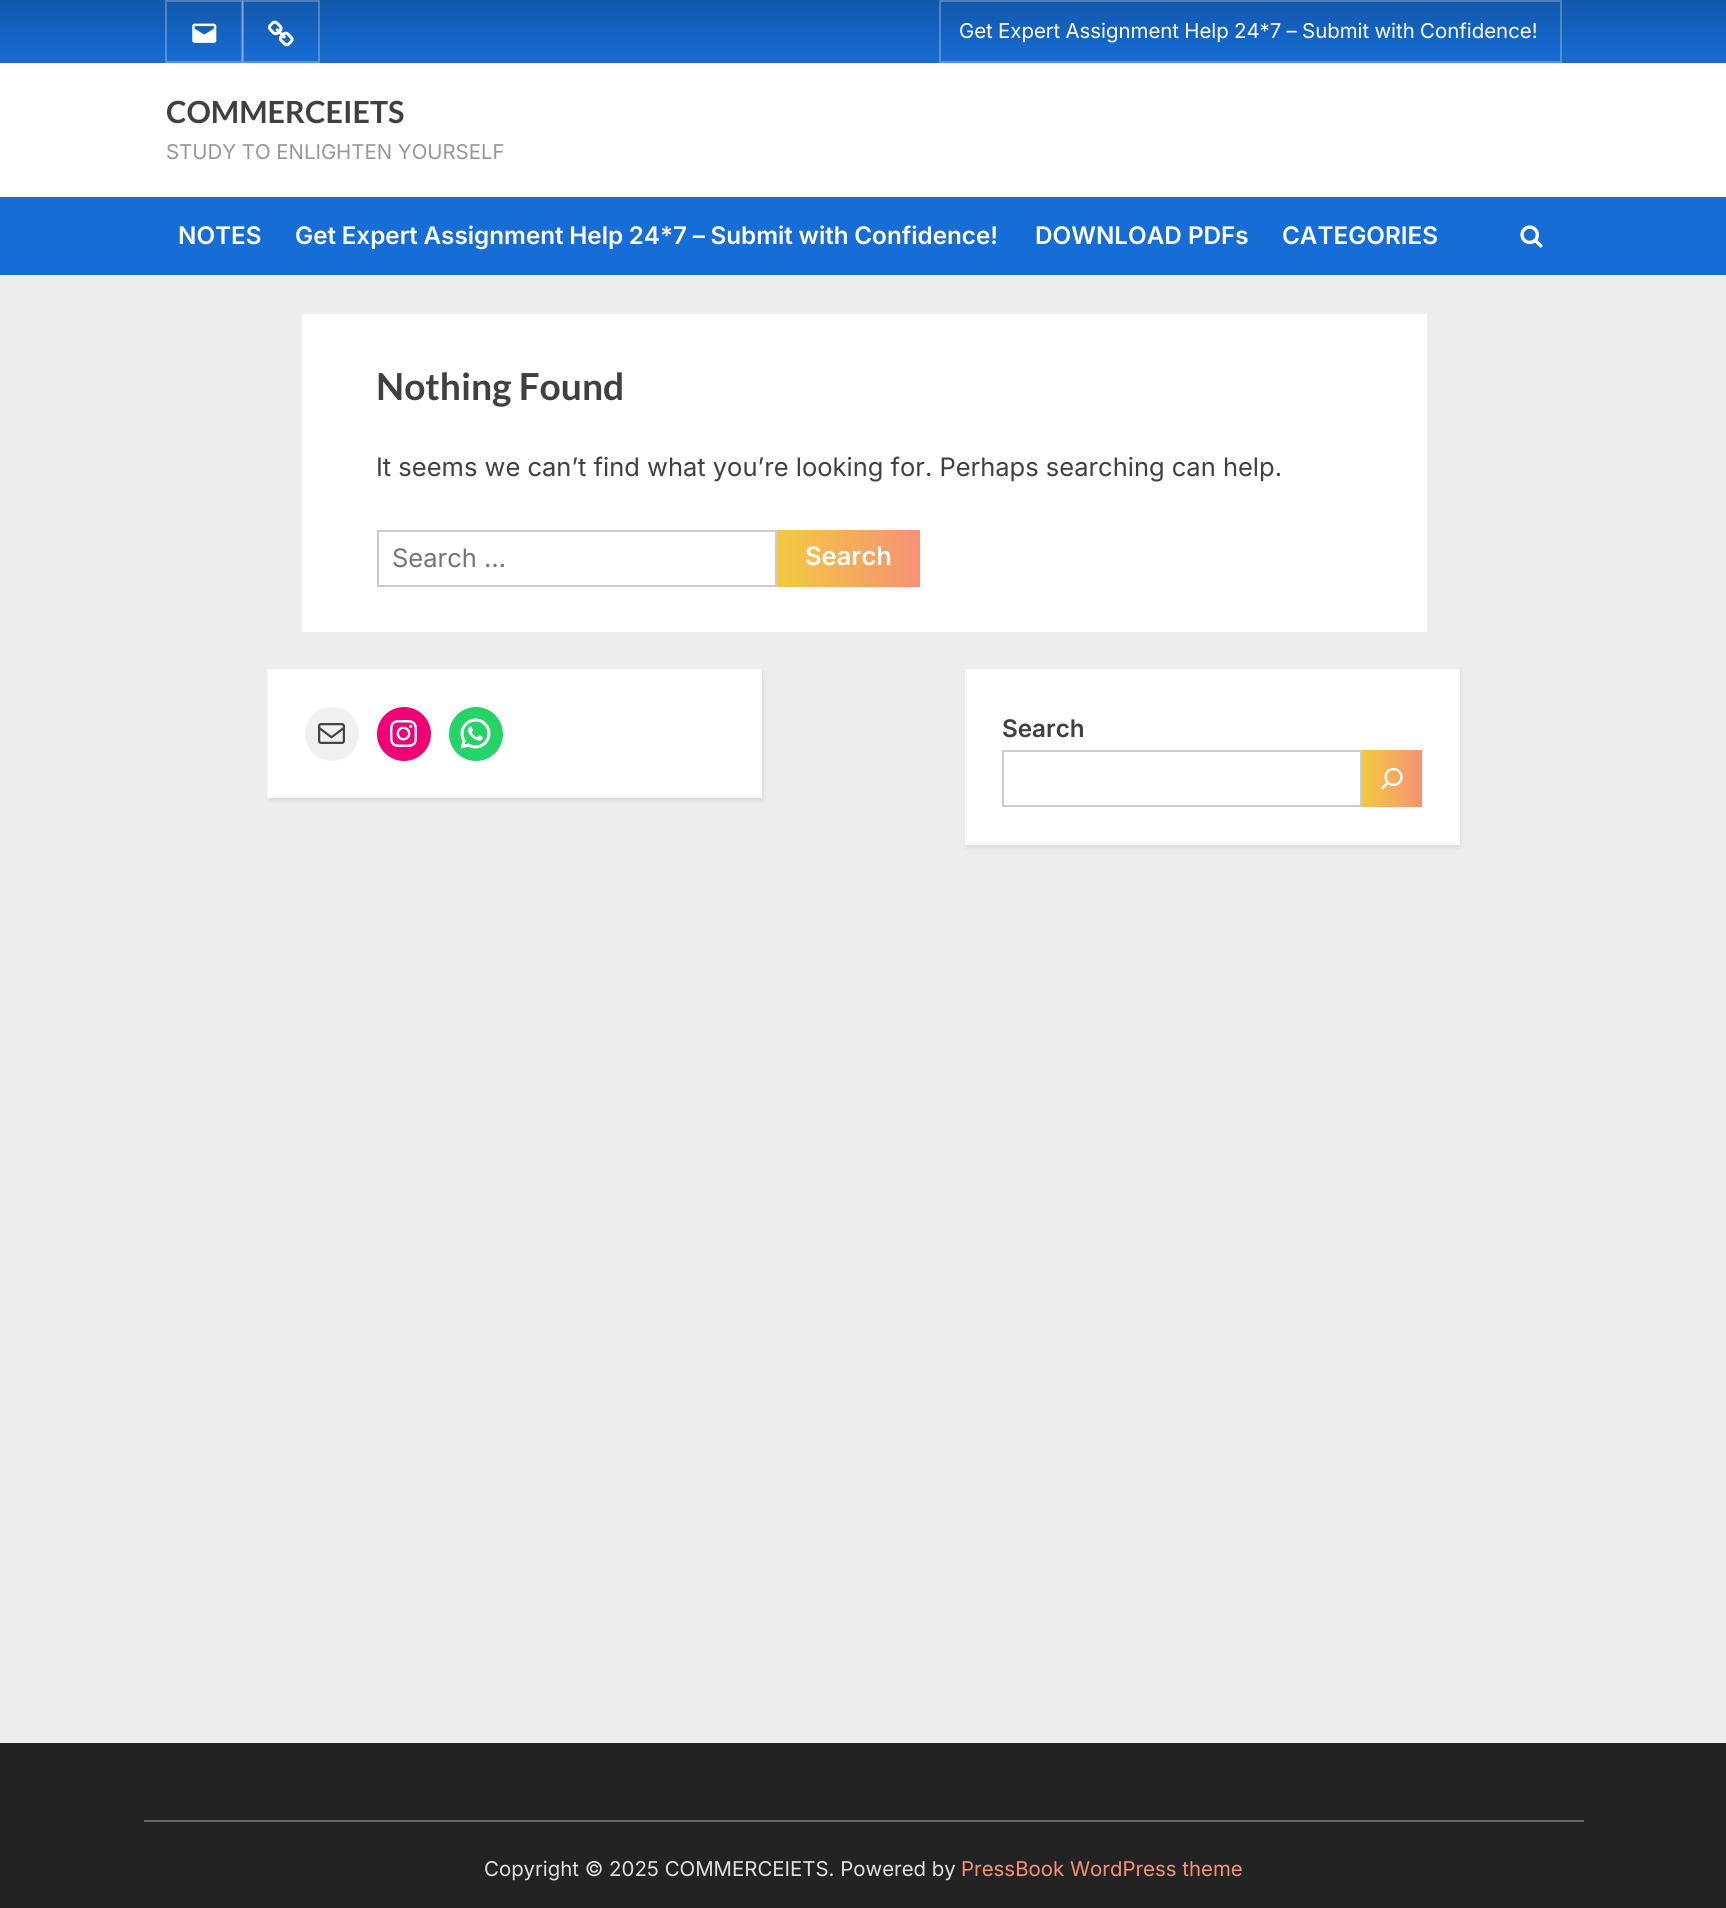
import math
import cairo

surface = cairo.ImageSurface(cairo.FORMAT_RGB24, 1726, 1908)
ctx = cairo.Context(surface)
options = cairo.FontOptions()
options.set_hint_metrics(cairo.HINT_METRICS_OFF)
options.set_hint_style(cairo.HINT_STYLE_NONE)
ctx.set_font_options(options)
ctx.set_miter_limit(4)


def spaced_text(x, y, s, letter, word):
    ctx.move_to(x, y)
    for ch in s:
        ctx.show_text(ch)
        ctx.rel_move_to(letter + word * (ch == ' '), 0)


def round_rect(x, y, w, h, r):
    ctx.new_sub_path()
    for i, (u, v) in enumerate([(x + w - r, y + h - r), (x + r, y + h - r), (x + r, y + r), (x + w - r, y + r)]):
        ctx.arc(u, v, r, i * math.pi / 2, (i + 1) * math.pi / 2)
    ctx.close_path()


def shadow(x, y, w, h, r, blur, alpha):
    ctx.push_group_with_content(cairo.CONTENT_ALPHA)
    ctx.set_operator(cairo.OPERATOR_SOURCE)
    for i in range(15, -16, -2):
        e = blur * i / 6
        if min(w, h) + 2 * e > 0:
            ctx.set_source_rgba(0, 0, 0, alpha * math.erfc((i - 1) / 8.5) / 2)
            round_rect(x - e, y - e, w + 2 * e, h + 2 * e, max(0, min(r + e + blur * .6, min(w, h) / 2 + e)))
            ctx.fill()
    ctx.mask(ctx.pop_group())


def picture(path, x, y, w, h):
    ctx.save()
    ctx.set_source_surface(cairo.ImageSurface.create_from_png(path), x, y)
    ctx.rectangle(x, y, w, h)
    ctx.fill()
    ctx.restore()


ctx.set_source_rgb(0.929, 0.929, 0.929)
ctx.paint()
gradient = cairo.LinearGradient(863, 63, 863, 0)
gradient.add_color_stop_rgba(0, 0.086, 0.427, 0.839, 1)
gradient.add_color_stop_rgba(1, 0.071, 0.341, 0.671, 1)
ctx.set_source(gradient)
ctx.rectangle(0, 0, 1726, 63)
ctx.fill()
ctx.rectangle(166, 1, 76, 61)
ctx.set_source_rgba(1, 1, 1, 0.25)
ctx.stroke()
picture("img1.png", 192, 23, 25, 20)
ctx.rectangle(243, 1, 76, 61)
ctx.stroke()
picture("img2.png", 268, 20, 26, 27)
ctx.rectangle(940, 1, 621, 61)
ctx.stroke()
ctx.select_font_face("Inter")
ctx.set_font_size(20.4)
ctx.set_source_rgb(1, 1, 1)
spaced_text(959, 38, "Get Expert Assignment Help 24*7 – Submit with Confidence!", 0, -0.5)
ctx.rectangle(0, 63, 1726, 134)
ctx.fill()
ctx.select_font_face("Lato", cairo.FONT_SLANT_NORMAL, cairo.FONT_WEIGHT_BOLD)
ctx.set_font_size(30.5)
ctx.set_source_rgb(0.251, 0.251, 0.251)
ctx.move_to(166, 123)
ctx.show_text("COMMERCEIETS")
ctx.select_font_face("Inter")
ctx.set_font_size(20.4)
ctx.set_source_rgb(0.592, 0.592, 0.592)
ctx.move_to(166, 159)
ctx.show_text("STUDY TO ENLIGHTEN YOURSELF")
ctx.set_source_rgb(0.086, 0.427, 0.839)
ctx.rectangle(0, 197, 1726, 78)
ctx.fill()
ctx.select_font_face("Inter SemiBold")
ctx.set_font_size(24.25)
ctx.set_source_rgb(1, 1, 1)
ctx.move_to(178, 244)
ctx.show_text("NOTES")
spaced_text(295, 244, "Get Expert Assignment Help 24*7 – Submit with Confidence!", 0, -0.5)
ctx.move_to(1035, 244)
ctx.show_text("DOWNLOAD PDFs")
ctx.move_to(1282, 244)
ctx.show_text("CATEGORIES")
picture("img3.png", 1520, 225, 23, 23)
ctx.rectangle(302, 314, 1125, 318)
ctx.fill()
ctx.select_font_face("Lato", cairo.FONT_SLANT_NORMAL, cairo.FONT_WEIGHT_BOLD)
ctx.set_font_size(37.25)
ctx.set_source_rgb(0.251, 0.251, 0.251)
ctx.move_to(376, 400)
ctx.show_text("Nothing Found")
ctx.select_font_face("Inter")
ctx.set_font_size(25.5)
ctx.move_to(376, 476)
ctx.show_text("It seems we can’t find what you’re looking for. Perhaps searching can help.")
ctx.rectangle(378, 531, 398, 55)
ctx.set_source_rgb(0.8, 0.8, 0.8)
ctx.stroke()
ctx.set_source_rgb(0.459, 0.459, 0.459)
ctx.move_to(392, 567)
ctx.show_text("Search …")
gradient = cairo.LinearGradient(507, 558, 780, 558)
gradient.add_color_stop_rgba(0, 0.953, 0.784, 0.255, 1)
gradient.add_color_stop_rgba(0.51, 0.965, 0.573, 0.459, 1)
gradient.add_color_stop_rgba(1, 0.953, 0.784, 0.255, 1)
ctx.set_source(gradient)
ctx.rectangle(777, 530, 3, 57)
ctx.fill()
gradient = cairo.LinearGradient(780, 558, 1053, 558)
gradient.add_color_stop_rgba(0, 0.953, 0.784, 0.255, 1)
gradient.add_color_stop_rgba(0.51, 0.965, 0.573, 0.459, 1)
gradient.add_color_stop_rgba(1, 0.953, 0.784, 0.255, 1)
ctx.set_source(gradient)
ctx.rectangle(780, 530, 140, 57)
ctx.fill()
ctx.select_font_face("Inter SemiBold")
ctx.set_source_rgb(1, 1, 1)
ctx.move_to(805, 565)
ctx.show_text("Search")
ctx.set_source_rgb(0, 0, 0)
shadow(269, 672, 495, 129, 0, 2, 0.07)
ctx.set_source_rgb(1, 1, 1)
ctx.rectangle(268, 670, 493, 127)
ctx.fill_preserve()
ctx.set_source_rgb(0.98, 0.98, 0.98)
ctx.stroke()
ctx.set_source_rgb(0.941, 0.941, 0.941)
ctx.arc(332, 734, 27, 0, 2 * math.pi)
ctx.fill()
picture("img4.png", 318, 723, 27, 21)
ctx.set_source_rgb(0.941, 0, 0.459)
ctx.arc(404, 734, 27, 0, 2 * math.pi)
ctx.fill()
picture("img5.png", 390, 720, 27, 27)
ctx.set_source_rgb(0.145, 0.827, 0.4)
ctx.arc(476, 734, 27, 0, 2 * math.pi)
ctx.fill()
picture("img6.png", 460, 718, 31, 31)
ctx.set_source_rgb(0, 0, 0)
shadow(966, 672, 495, 176, 0, 2, 0.07)
ctx.set_source_rgb(1, 1, 1)
ctx.rectangle(966, 670, 493, 174)
ctx.fill_preserve()
ctx.set_source_rgb(0.98, 0.98, 0.98)
ctx.stroke()
ctx.set_font_size(24.25)
ctx.set_source_rgb(0.251, 0.251, 0.251)
ctx.move_to(1002, 737)
ctx.show_text("Search")
ctx.rectangle(1003, 751, 358, 55)
ctx.set_source_rgb(0.8, 0.8, 0.8)
ctx.stroke()
gradient = cairo.LinearGradient(1250, 779, 1364, 779)
gradient.add_color_stop_rgba(0, 0.953, 0.784, 0.255, 1)
gradient.add_color_stop_rgba(0.51, 0.965, 0.573, 0.459, 1)
gradient.add_color_stop_rgba(1, 0.953, 0.784, 0.255, 1)
ctx.set_source(gradient)
ctx.rectangle(1362, 750, 2, 57)
ctx.fill()
gradient = cairo.LinearGradient(1364, 779, 1478, 779)
gradient.add_color_stop_rgba(0, 0.953, 0.784, 0.255, 1)
gradient.add_color_stop_rgba(0.51, 0.965, 0.573, 0.459, 1)
gradient.add_color_stop_rgba(1, 0.953, 0.784, 0.255, 1)
ctx.set_source(gradient)
ctx.rectangle(1364, 750, 58, 57)
ctx.fill()
picture("img7.png", 1380, 768, 23, 22)
ctx.set_source_rgb(0.137, 0.137, 0.137)
ctx.rectangle(0, 1743, 1726, 165)
ctx.fill()
ctx.set_source_rgb(0.4, 0.4, 0.4)
ctx.rectangle(144, 1820, 1440, 2)
ctx.fill()
ctx.select_font_face("Inter")
ctx.set_font_size(20.4)
ctx.set_source_rgb(0.882, 0.882, 0.882)
ctx.move_to(484, 1876)
ctx.show_text("Copyright © 2025 COMMERCEIETS. Powered by")
ctx.set_source_rgb(0.965, 0.573, 0.459)
ctx.move_to(961, 1876)
ctx.show_text("PressBook WordPress theme")
surface.write_to_png("page.png")
